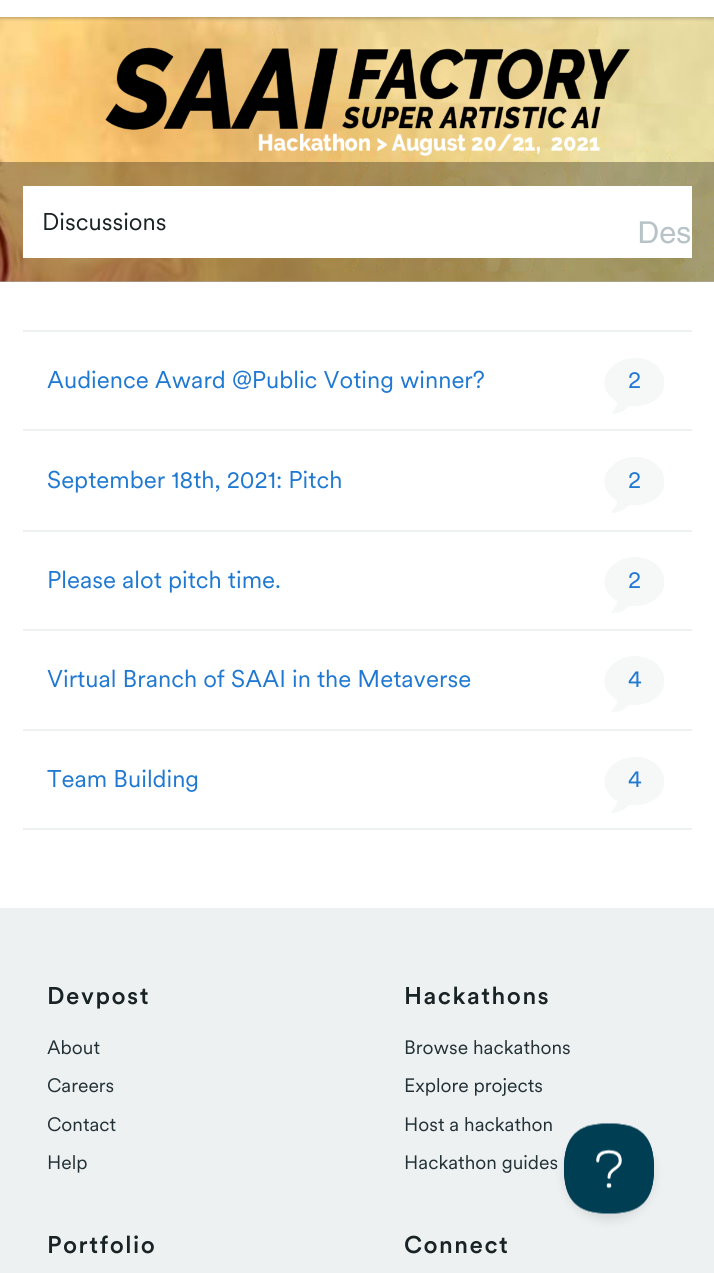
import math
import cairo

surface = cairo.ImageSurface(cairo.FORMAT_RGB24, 714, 1273)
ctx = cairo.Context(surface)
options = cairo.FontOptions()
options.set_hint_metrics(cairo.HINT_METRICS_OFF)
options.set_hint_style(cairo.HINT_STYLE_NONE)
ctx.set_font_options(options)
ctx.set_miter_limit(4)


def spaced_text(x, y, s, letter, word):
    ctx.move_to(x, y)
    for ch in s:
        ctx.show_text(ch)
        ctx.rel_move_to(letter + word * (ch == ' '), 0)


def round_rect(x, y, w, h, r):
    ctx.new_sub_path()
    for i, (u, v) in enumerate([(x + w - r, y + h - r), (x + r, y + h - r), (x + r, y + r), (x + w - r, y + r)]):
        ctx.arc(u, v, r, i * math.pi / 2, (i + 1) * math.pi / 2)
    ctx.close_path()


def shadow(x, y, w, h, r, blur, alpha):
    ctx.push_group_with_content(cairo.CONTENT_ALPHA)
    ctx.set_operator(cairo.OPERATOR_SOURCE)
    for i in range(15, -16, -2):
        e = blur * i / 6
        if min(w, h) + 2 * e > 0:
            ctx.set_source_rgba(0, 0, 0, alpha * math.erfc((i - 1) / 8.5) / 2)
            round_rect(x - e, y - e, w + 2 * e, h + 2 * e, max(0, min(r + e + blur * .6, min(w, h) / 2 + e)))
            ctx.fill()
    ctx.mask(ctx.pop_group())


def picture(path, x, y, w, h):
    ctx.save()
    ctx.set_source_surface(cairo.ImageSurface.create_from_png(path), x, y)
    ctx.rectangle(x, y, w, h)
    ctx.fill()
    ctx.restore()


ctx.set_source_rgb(1, 1, 1)
ctx.paint()
ctx.set_source_rgb(0.961, 0.969, 0.965)
ctx.rectangle(0, 281, 714, 1)
ctx.fill()
picture("img1.png", 0, 17, 714, 265)
ctx.set_source_rgb(0, 0, 0)
shadow(0, -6, 714, 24, 0, 2, 0.3)
ctx.set_source_rgb(1, 1, 1)
ctx.rectangle(0, 0, 714, 17)
ctx.fill()
picture("img2.png", 105, 47, 525, 109)
ctx.set_source_rgba(0, 0, 0, 0.3)
ctx.rectangle(0, 162, 714, 120)
ctx.fill()
ctx.set_source_rgb(1, 1, 1)
ctx.rectangle(23, 186, 669, 72)
ctx.fill()
ctx.select_font_face("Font")
ctx.set_font_size(24)
ctx.set_source_rgb(0.098, 0.137, 0.145)
ctx.move_to(42, 230)
ctx.show_text("Discussions")
picture("img3.png", 639, 221, 52, 23)
ctx.set_source_rgb(0.929, 0.945, 0.949)
ctx.rectangle(23, 330, 669, 2)
ctx.fill()
ctx.rectangle(23, 429, 669, 2)
ctx.fill()
ctx.set_source_rgb(0.122, 0.471, 0.82)
ctx.move_to(47, 388)
ctx.show_text("Audience Award @Public Voting winner?")
ctx.set_source_rgb(0.961, 0.969, 0.969)
ctx.new_path()
ctx.move_to(656, 365)
ctx.curve_to(660, 369, 664, 374, 664, 380)
ctx.curve_to(667, 399, 646, 408, 629, 406)
ctx.curve_to(627, 408, 624, 411, 621, 412)
ctx.line_to(615, 414)
ctx.curve_to(609, 415, 613, 411, 614, 409)
ctx.curve_to(616, 407, 617, 404, 617, 402)
ctx.curve_to(591, 386, 609, 356, 638, 358)
ctx.curve_to(644, 358, 651, 361, 656, 365)
ctx.close_path()
ctx.fill()
ctx.set_source_rgb(0.122, 0.471, 0.82)
ctx.move_to(628, 388)
ctx.show_text("2")
ctx.set_source_rgb(0.929, 0.945, 0.949)
ctx.rectangle(23, 530, 669, 2)
ctx.fill()
ctx.set_source_rgb(0.122, 0.471, 0.82)
ctx.move_to(47, 488)
ctx.show_text("September 18th, 2021: Pitch")
ctx.set_source_rgb(0.961, 0.969, 0.969)
ctx.new_path()
ctx.move_to(656, 464)
ctx.curve_to(660, 468, 664, 473, 664, 479)
ctx.curve_to(667, 498, 646, 507, 629, 505)
ctx.curve_to(627, 507, 624, 510, 621, 511)
ctx.line_to(615, 513)
ctx.curve_to(609, 514, 613, 510, 614, 508)
ctx.curve_to(616, 506, 617, 503, 617, 501)
ctx.curve_to(591, 485, 609, 455, 638, 457)
ctx.curve_to(644, 457, 651, 460, 656, 464)
ctx.close_path()
ctx.fill()
ctx.set_source_rgb(0.122, 0.471, 0.82)
ctx.move_to(628, 488)
ctx.show_text("2")
ctx.set_source_rgb(0.929, 0.945, 0.949)
ctx.rectangle(23, 629, 669, 2)
ctx.fill()
ctx.set_source_rgb(0.122, 0.471, 0.82)
ctx.move_to(47, 588)
ctx.show_text("Please alot pitch time.")
ctx.set_source_rgb(0.961, 0.969, 0.969)
ctx.new_path()
ctx.move_to(656, 564)
ctx.curve_to(660, 568, 664, 573, 664, 579)
ctx.curve_to(667, 598, 646, 608, 629, 606)
ctx.curve_to(627, 608, 624, 610, 621, 612)
ctx.line_to(615, 613)
ctx.curve_to(609, 614, 613, 611, 614, 608)
ctx.curve_to(616, 606, 617, 604, 617, 601)
ctx.curve_to(591, 586, 609, 555, 638, 557)
ctx.curve_to(644, 558, 651, 560, 656, 564)
ctx.close_path()
ctx.fill()
ctx.set_source_rgb(0.122, 0.471, 0.82)
ctx.move_to(628, 588)
ctx.show_text("2")
ctx.set_source_rgb(0.929, 0.945, 0.949)
ctx.rectangle(23, 729, 669, 2)
ctx.fill()
ctx.set_source_rgb(0.122, 0.471, 0.82)
ctx.move_to(47, 687)
ctx.show_text("Virtual Branch of SAAI in the Metaverse")
ctx.set_source_rgb(0.961, 0.969, 0.969)
ctx.new_path()
ctx.move_to(656, 663)
ctx.curve_to(660, 667, 664, 672, 664, 678)
ctx.curve_to(667, 697, 646, 707, 629, 705)
ctx.curve_to(627, 707, 624, 709, 621, 711)
ctx.line_to(615, 712)
ctx.curve_to(609, 713, 613, 710, 614, 707)
ctx.curve_to(616, 705, 617, 703, 617, 700)
ctx.curve_to(591, 685, 609, 654, 638, 656)
ctx.curve_to(644, 657, 651, 659, 656, 663)
ctx.close_path()
ctx.fill()
ctx.set_source_rgb(0.122, 0.471, 0.82)
ctx.move_to(628, 687)
ctx.show_text("4")
ctx.set_source_rgb(0.929, 0.945, 0.949)
ctx.rectangle(23, 828, 669, 2)
ctx.fill()
ctx.set_source_rgb(0.122, 0.471, 0.82)
ctx.move_to(47, 787)
ctx.show_text("Team Building")
ctx.set_source_rgb(0.961, 0.969, 0.969)
ctx.new_path()
ctx.move_to(656, 764)
ctx.curve_to(660, 768, 664, 773, 664, 779)
ctx.curve_to(667, 798, 646, 807, 629, 805)
ctx.curve_to(627, 807, 624, 810, 621, 811)
ctx.line_to(615, 813)
ctx.curve_to(609, 814, 613, 810, 614, 808)
ctx.curve_to(616, 806, 617, 803, 617, 801)
ctx.curve_to(591, 785, 609, 755, 638, 757)
ctx.curve_to(644, 757, 651, 760, 656, 764)
ctx.close_path()
ctx.fill()
ctx.set_source_rgb(0.122, 0.471, 0.82)
ctx.move_to(628, 787)
ctx.show_text("4")
ctx.set_source_rgb(0.929, 0.945, 0.949)
ctx.rectangle(0, 908, 714, 365)
ctx.fill()
ctx.select_font_face("Font Medium")
ctx.set_source_rgb(0.098, 0.137, 0.145)
spaced_text(47, 1004, "Devpost", 1.5, 0)
ctx.select_font_face("Font")
ctx.set_font_size(19.25)
ctx.set_source_rgb(0.137, 0.192, 0.212)
ctx.move_to(47, 1054)
ctx.show_text("About")
ctx.move_to(47, 1092)
ctx.show_text("Careers")
ctx.move_to(47, 1131)
ctx.show_text("Contact")
ctx.move_to(47, 1169)
ctx.show_text("Help")
ctx.select_font_face("Font Medium")
ctx.set_font_size(24)
ctx.set_source_rgb(0.098, 0.137, 0.145)
spaced_text(404, 1004, "Hackathons", 1.5, 0)
ctx.select_font_face("Font")
ctx.set_font_size(19.25)
ctx.set_source_rgb(0.137, 0.192, 0.212)
ctx.move_to(404, 1054)
ctx.show_text("Browse hackathons")
ctx.move_to(404, 1092)
ctx.show_text("Explore projects")
ctx.move_to(404, 1131)
ctx.show_text("Host a hackathon")
ctx.move_to(404, 1169)
ctx.show_text("Hackathon guides")
ctx.select_font_face("Font Medium")
ctx.set_font_size(24)
ctx.set_source_rgb(0.098, 0.137, 0.145)
spaced_text(47, 1253, "Portfolio", 1.5, 0)
spaced_text(404, 1253, "Connect", 1.5, 0)
ctx.set_source_rgb(0, 0, 0)
shadow(564, 1130, 90, 90, 45, 5, 0.1)
picture("img4.png", 564, 1123, 90, 91)
surface.write_to_png("page.png")
